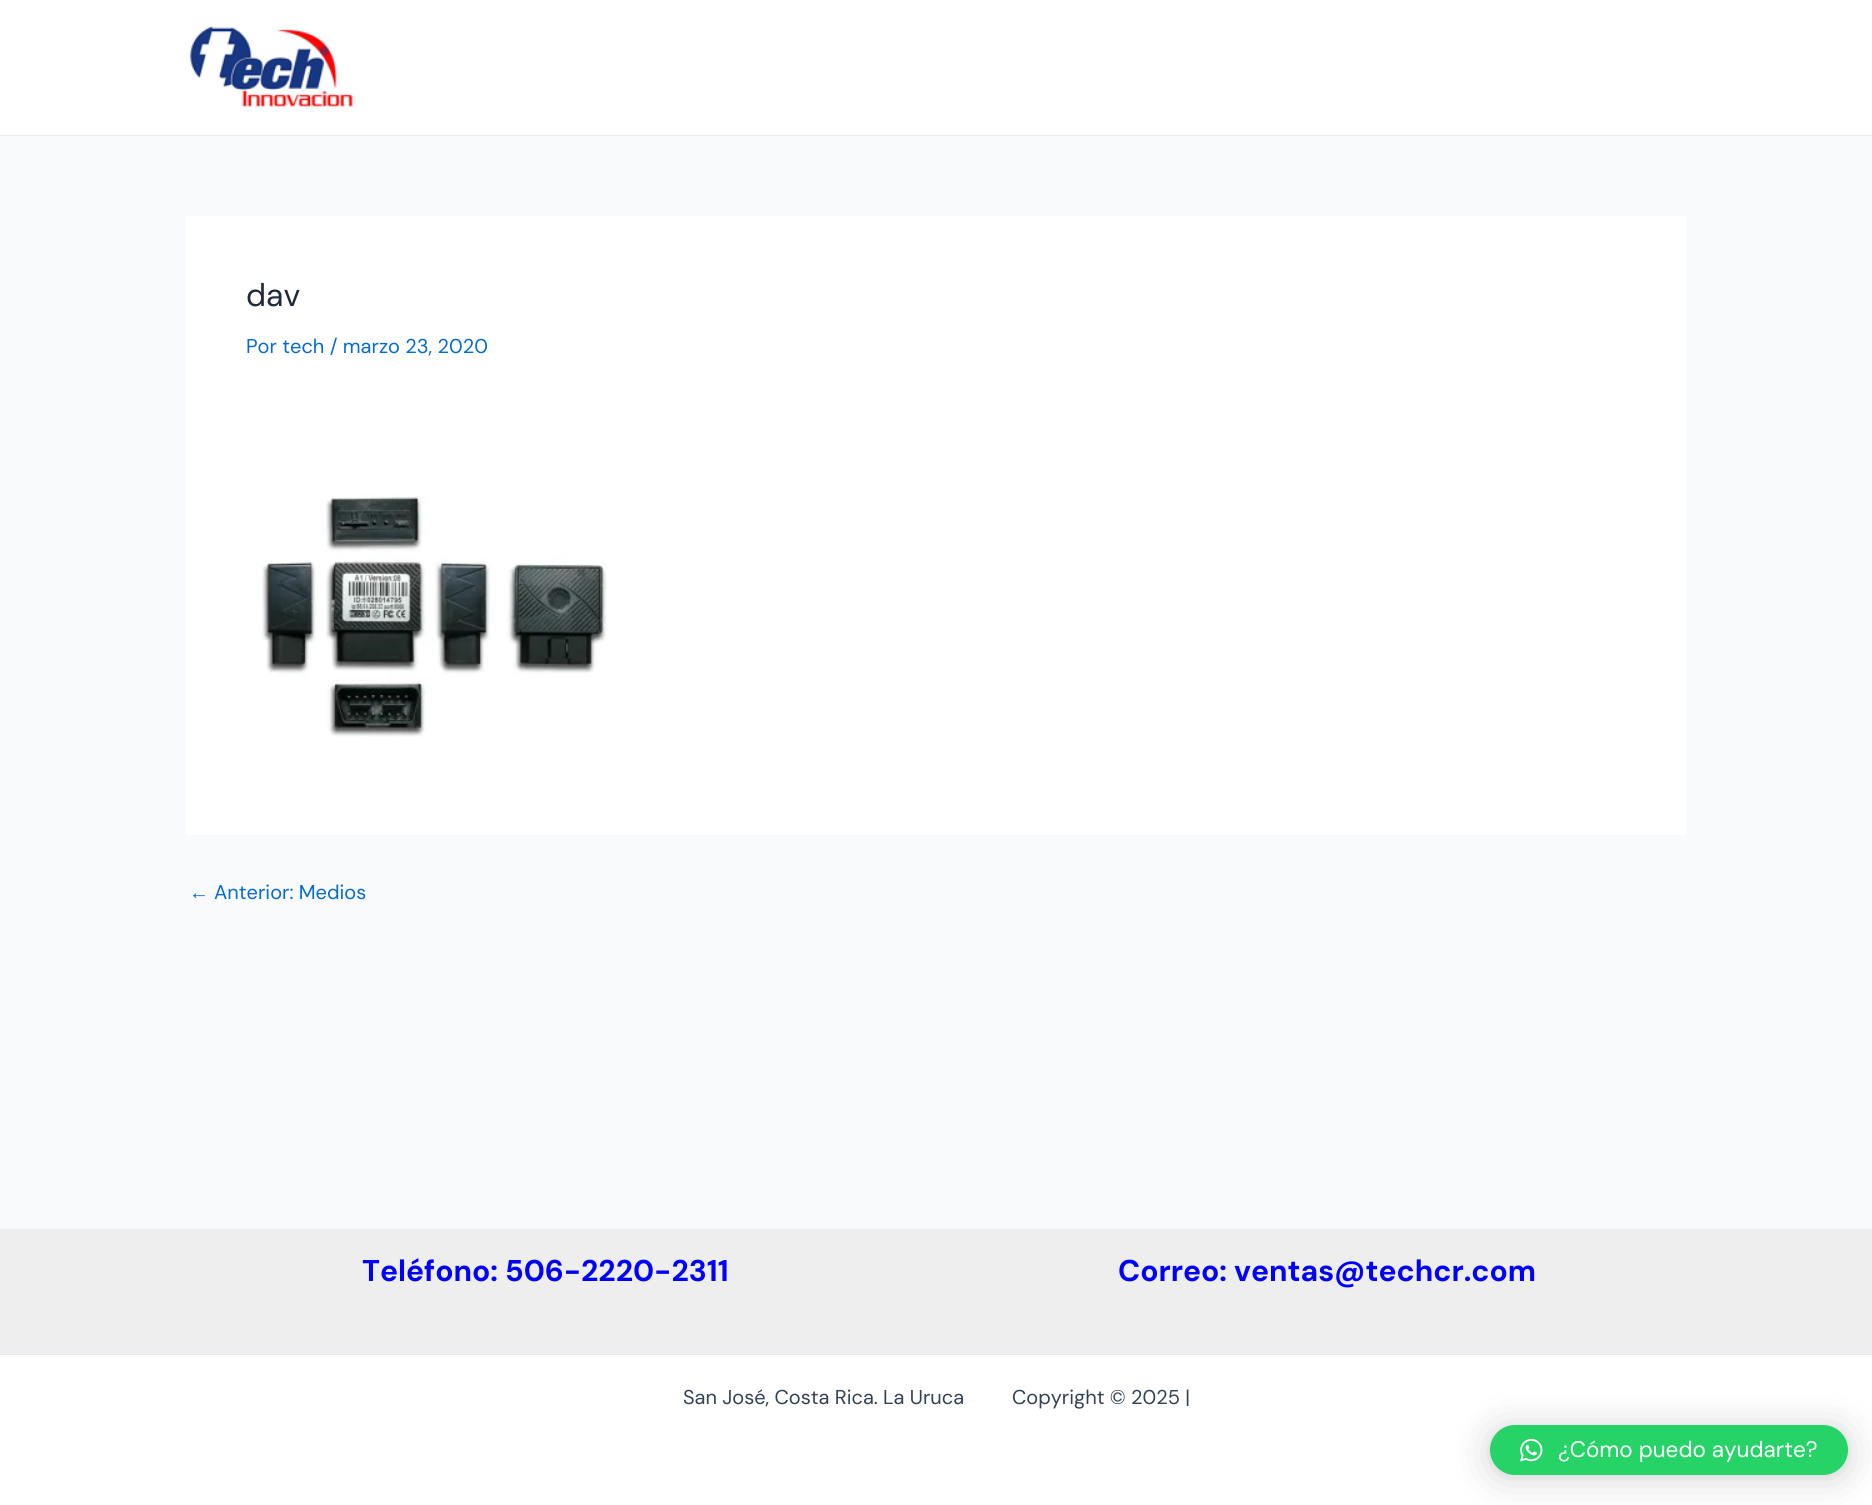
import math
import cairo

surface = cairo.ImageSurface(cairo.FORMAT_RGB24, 1872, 1505)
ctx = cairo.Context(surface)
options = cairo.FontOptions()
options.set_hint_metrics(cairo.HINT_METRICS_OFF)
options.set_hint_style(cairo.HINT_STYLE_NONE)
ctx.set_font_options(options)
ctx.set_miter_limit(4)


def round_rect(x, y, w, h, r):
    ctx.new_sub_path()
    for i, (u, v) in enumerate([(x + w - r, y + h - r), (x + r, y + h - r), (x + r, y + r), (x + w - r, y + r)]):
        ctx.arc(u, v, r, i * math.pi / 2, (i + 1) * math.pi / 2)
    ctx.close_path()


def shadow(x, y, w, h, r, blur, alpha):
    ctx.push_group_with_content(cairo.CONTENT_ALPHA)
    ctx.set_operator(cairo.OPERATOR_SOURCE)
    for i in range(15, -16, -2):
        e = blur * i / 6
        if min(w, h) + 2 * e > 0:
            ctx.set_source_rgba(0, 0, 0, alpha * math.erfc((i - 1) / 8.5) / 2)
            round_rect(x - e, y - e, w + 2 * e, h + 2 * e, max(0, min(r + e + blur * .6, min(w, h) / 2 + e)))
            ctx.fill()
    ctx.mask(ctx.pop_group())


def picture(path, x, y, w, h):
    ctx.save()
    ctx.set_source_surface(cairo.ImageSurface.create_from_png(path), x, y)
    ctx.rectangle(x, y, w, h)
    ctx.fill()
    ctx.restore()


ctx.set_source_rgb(0.976, 0.98, 0.984)
ctx.paint()
ctx.set_source_rgb(1, 1, 1)
ctx.rectangle(0, 0, 1872, 135)
ctx.fill()
ctx.set_source_rgb(0.918, 0.918, 0.918)
ctx.rectangle(0, 135, 1872, 1)
ctx.fill()
picture("img1.png", 189, 26, 165, 82)
ctx.set_source_rgb(1, 1, 1)
ctx.rectangle(186, 216, 1500, 619)
ctx.fill()
ctx.select_font_face("DM Sans")
ctx.set_font_size(32)
ctx.set_source_rgb(0.118, 0.161, 0.231)
ctx.move_to(246, 306)
ctx.show_text("dav")
ctx.set_font_size(20)
ctx.set_source_rgb(0.016, 0.42, 0.824)
ctx.move_to(246, 353)
ctx.show_text("Por tech / marzo 23, 2020")
picture("img2.png", 261, 495, 346, 242)
ctx.select_font_face("Liberation Sans")
ctx.move_to(189, 899)
ctx.show_text("←")
ctx.select_font_face("DM Sans")
ctx.move_to(214, 899)
ctx.show_text("Anterior: Medios")
ctx.set_source_rgb(0.933, 0.933, 0.933)
ctx.rectangle(0, 1229, 1872, 125)
ctx.fill()
ctx.select_font_face("DM Sans", cairo.FONT_SLANT_NORMAL, cairo.FONT_WEIGHT_BOLD)
ctx.set_font_size(30)
ctx.set_source_rgb(0, 0, 1)
ctx.move_to(362, 1281)
ctx.show_text("Teléfono: 506-2220-2311")
ctx.move_to(1118, 1281)
ctx.show_text("Correo: ventas@techcr.com")
ctx.set_source_rgb(1, 1, 1)
ctx.rectangle(0, 1355, 1872, 150)
ctx.fill()
ctx.set_source_rgb(0.886, 0.91, 0.941)
ctx.rectangle(0, 1354, 1872, 1)
ctx.fill()
ctx.select_font_face("DM Sans")
ctx.set_font_size(20)
ctx.set_source_rgb(0.2, 0.255, 0.333)
ctx.move_to(683, 1404)
ctx.show_text("San José, Costa Rica. La Uruca         Copyright © 2025 |")
ctx.set_source_rgb(0, 0, 0)
shadow(1490, 1428, 358, 50, 25, 20, 0.16)
shadow(1490, 1426, 358, 50, 25, 4, 0.06)
ctx.set_source_rgb(0.145, 0.827, 0.4)
round_rect(1490, 1425, 358, 50, 25)
ctx.fill()
picture("img3.png", 1520, 1438, 23, 24)
ctx.set_font_size(22.5)
ctx.set_source_rgb(1, 1, 1)
ctx.move_to(1558, 1457)
ctx.show_text("¿Cómo puedo ayudarte?")
surface.write_to_png("page.png")
